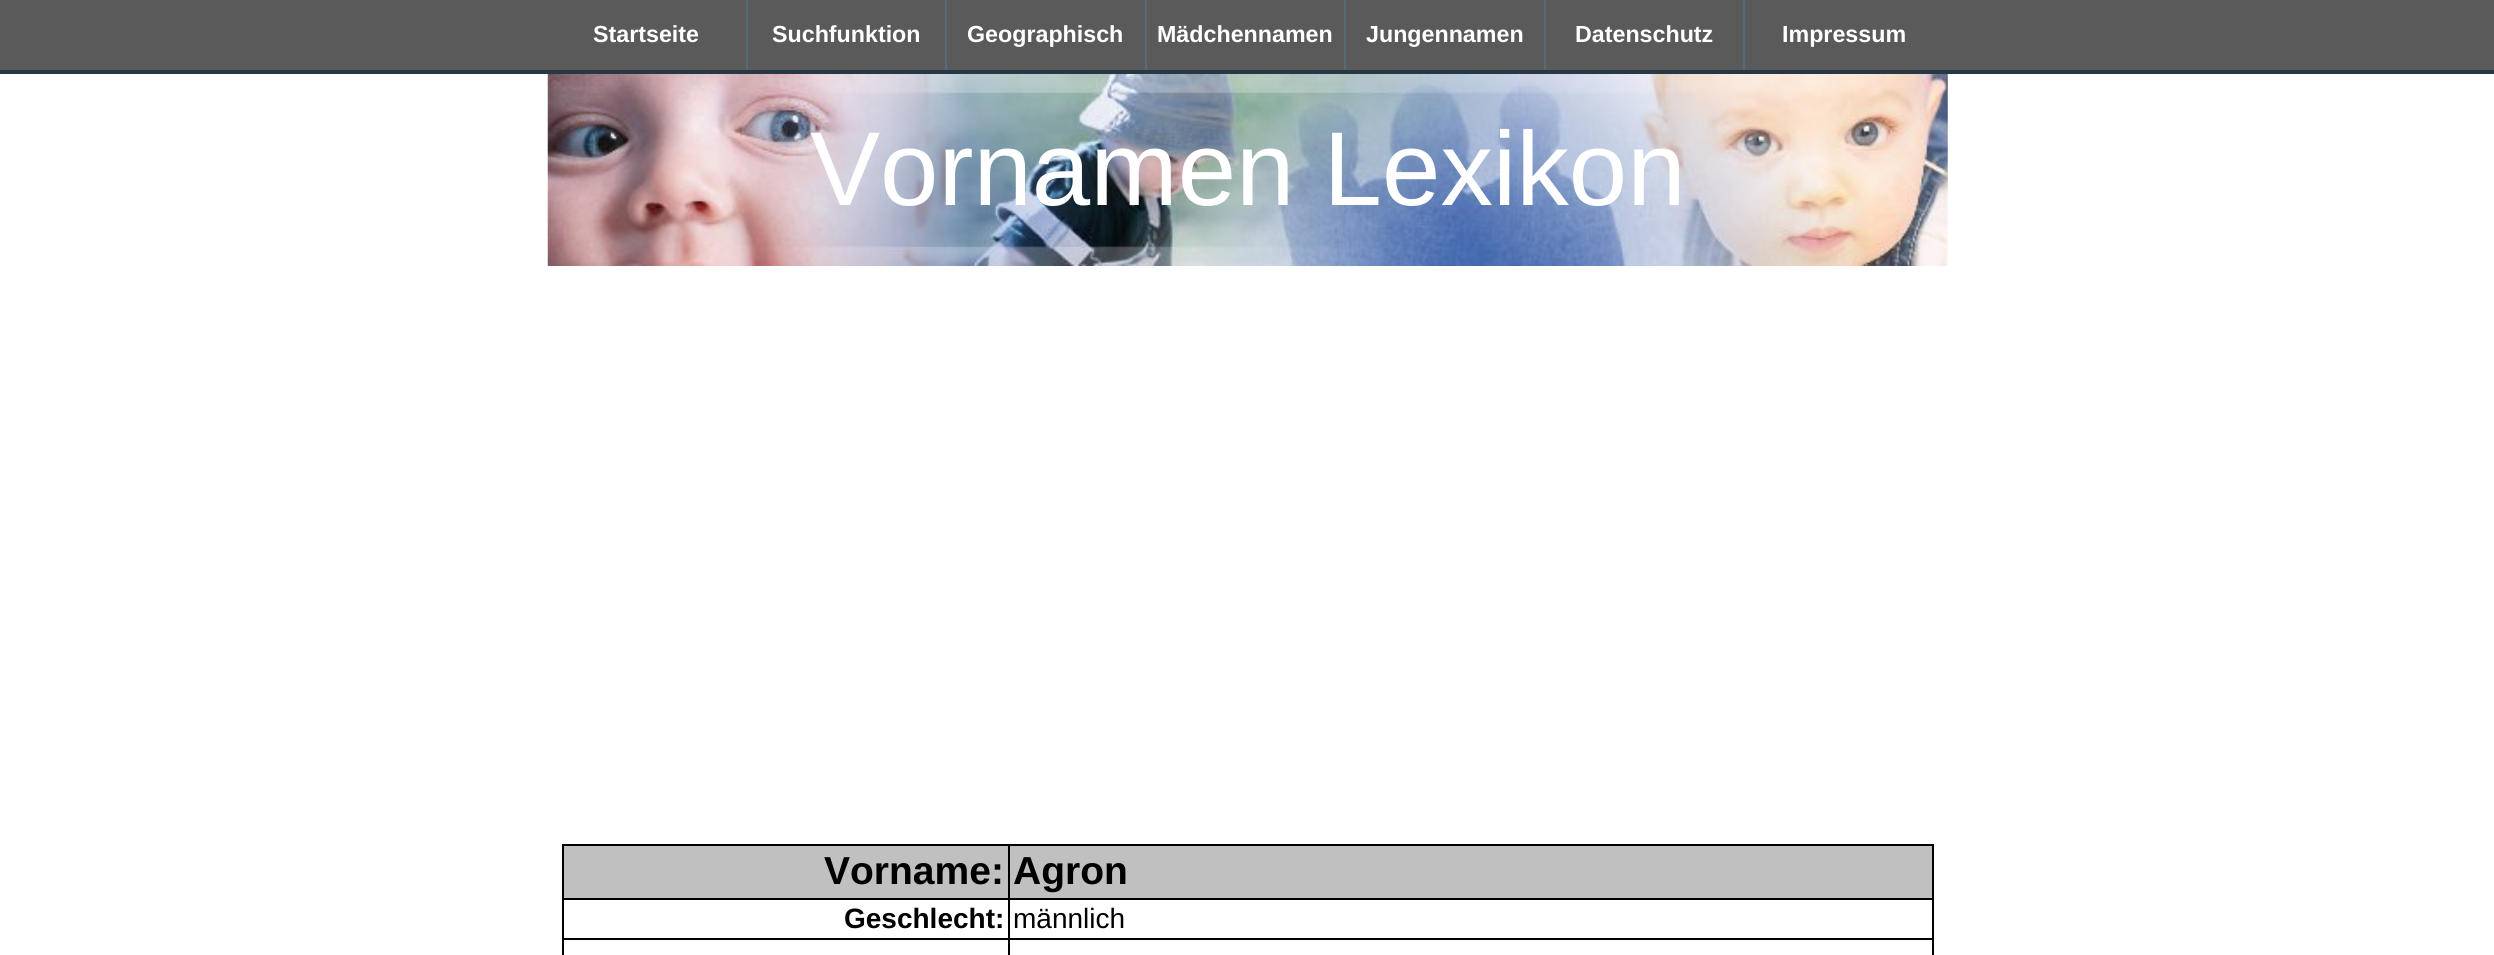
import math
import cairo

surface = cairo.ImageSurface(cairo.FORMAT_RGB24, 2494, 955)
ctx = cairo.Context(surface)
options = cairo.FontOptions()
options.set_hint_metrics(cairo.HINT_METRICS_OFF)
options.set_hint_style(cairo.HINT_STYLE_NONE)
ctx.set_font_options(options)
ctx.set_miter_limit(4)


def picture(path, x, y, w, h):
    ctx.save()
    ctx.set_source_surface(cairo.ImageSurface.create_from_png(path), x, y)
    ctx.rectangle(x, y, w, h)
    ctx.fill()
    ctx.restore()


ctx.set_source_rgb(1, 1, 1)
ctx.paint()
ctx.set_source_rgb(0.353, 0.353, 0.353)
ctx.rectangle(0, 0, 2494, 70)
ctx.fill()
ctx.set_source_rgb(0.157, 0.216, 0.267)
ctx.rectangle(0, 70, 2494, 4)
ctx.fill()
ctx.set_source_rgb(0.341, 0.412, 0.475)
ctx.rectangle(746, 0, 2, 70)
ctx.fill()
ctx.select_font_face("Liberation Sans", cairo.FONT_SLANT_NORMAL, cairo.FONT_WEIGHT_BOLD)
ctx.set_font_size(23.25)
ctx.set_source_rgb(1, 1, 1)
ctx.move_to(593, 42)
ctx.show_text("Startseite")
ctx.set_source_rgb(0.341, 0.412, 0.475)
ctx.rectangle(945, 0, 2, 70)
ctx.fill()
ctx.set_source_rgb(1, 1, 1)
ctx.move_to(772, 42)
ctx.show_text("Suchfunktion")
ctx.set_source_rgb(0.341, 0.412, 0.475)
ctx.rectangle(1145, 0, 2, 70)
ctx.fill()
ctx.set_source_rgb(1, 1, 1)
ctx.move_to(967, 42)
ctx.show_text("Geographisch")
ctx.set_source_rgb(0.341, 0.412, 0.475)
ctx.rectangle(1344, 0, 2, 70)
ctx.fill()
ctx.set_source_rgb(1, 1, 1)
ctx.move_to(1157, 42)
ctx.show_text("Mädchennamen")
ctx.set_source_rgb(0.341, 0.412, 0.475)
ctx.rectangle(1544, 0, 2, 70)
ctx.fill()
ctx.set_source_rgb(1, 1, 1)
ctx.move_to(1366, 42)
ctx.show_text("Jungennamen")
ctx.set_source_rgb(0.341, 0.412, 0.475)
ctx.rectangle(1743, 0, 2, 70)
ctx.fill()
ctx.set_source_rgb(1, 1, 1)
ctx.move_to(1575, 42)
ctx.show_text("Datenschutz")
ctx.move_to(1782, 42)
ctx.show_text("Impressum")
picture("img1.png", 547, 74, 1401, 192)
ctx.select_font_face("Liberation Sans")
ctx.set_font_size(105)
ctx.move_to(810, 205)
ctx.show_text("Vornamen Lexikon")
ctx.set_source_rgb(0.753, 0.753, 0.753)
ctx.rectangle(564, 846, 1368, 52)
ctx.fill()
ctx.set_source_rgb(0, 0, 0)
ctx.rectangle(1008, 844, 926, 2)
ctx.fill()
ctx.rectangle(1008, 898, 926, 2)
ctx.fill()
ctx.rectangle(1008, 938, 926, 2)
ctx.fill()
ctx.rectangle(1008, 938, 2, 17)
ctx.fill()
ctx.rectangle(562, 938, 448, 2)
ctx.fill()
ctx.rectangle(1008, 898, 2, 42)
ctx.fill()
ctx.rectangle(562, 898, 448, 2)
ctx.fill()
ctx.rectangle(1008, 844, 2, 56)
ctx.fill()
ctx.rectangle(562, 844, 448, 2)
ctx.fill()
ctx.rectangle(562, 938, 2, 17)
ctx.fill()
ctx.rectangle(562, 898, 2, 42)
ctx.fill()
ctx.rectangle(562, 844, 2, 56)
ctx.fill()
ctx.select_font_face("Liberation Sans", cairo.FONT_SLANT_NORMAL, cairo.FONT_WEIGHT_BOLD)
ctx.set_font_size(39)
ctx.move_to(824, 884)
ctx.show_text("Vorname:")
ctx.rectangle(1932, 938, 2, 17)
ctx.fill()
ctx.rectangle(1932, 898, 2, 42)
ctx.fill()
ctx.rectangle(1932, 844, 2, 56)
ctx.fill()
ctx.move_to(1013, 884)
ctx.show_text("Agron")
ctx.set_font_size(28)
ctx.move_to(844, 928)
ctx.show_text("Geschlecht:")
ctx.select_font_face("Liberation Sans")
ctx.move_to(1013, 928)
ctx.show_text("männlich")
surface.write_to_png("page.png")
